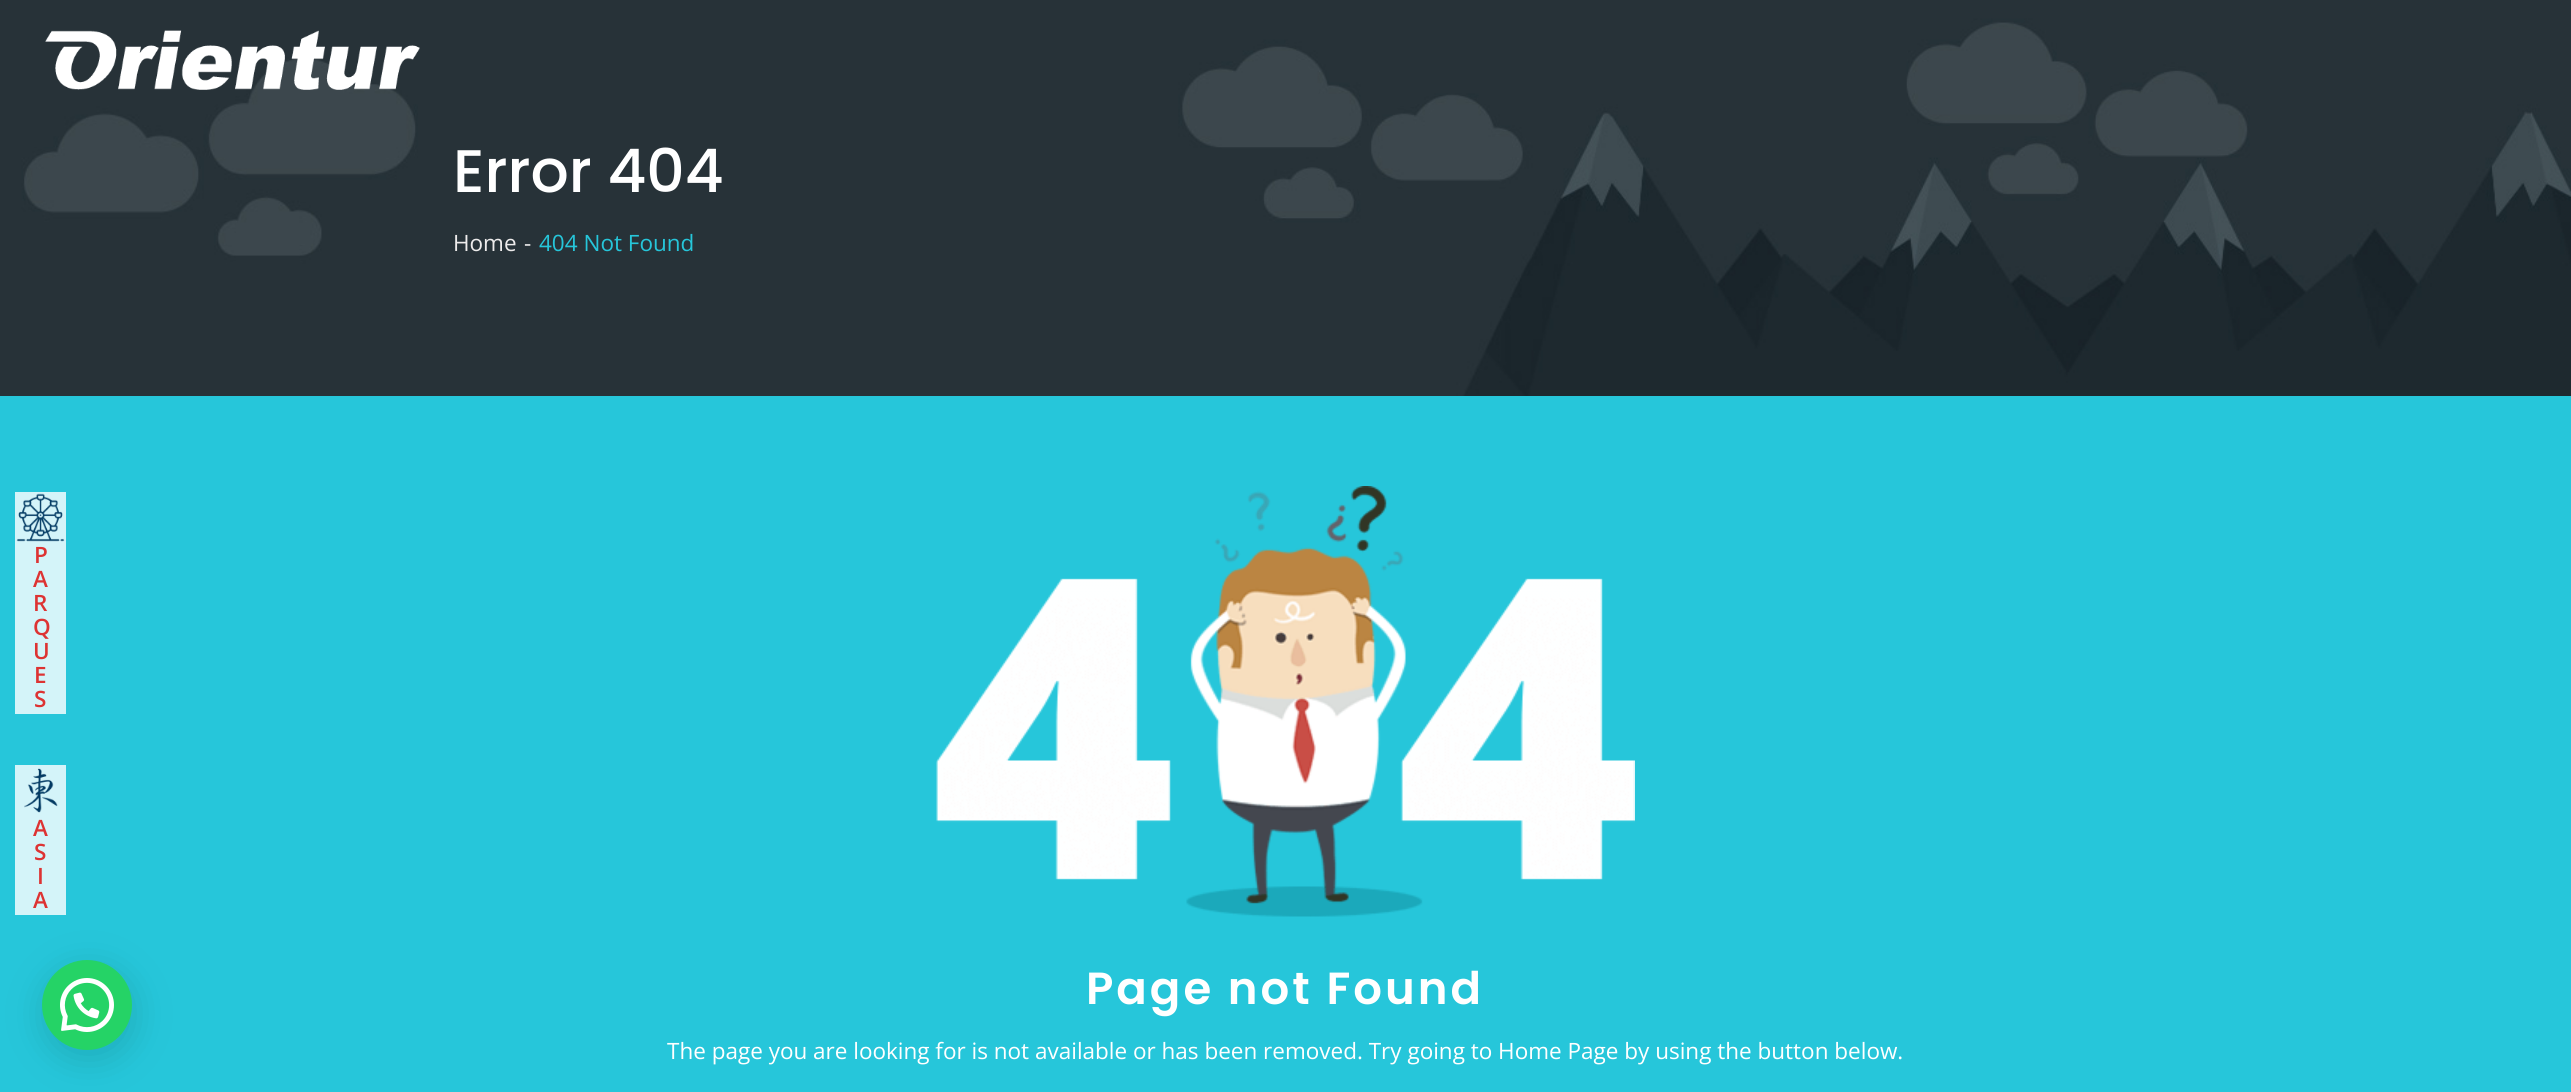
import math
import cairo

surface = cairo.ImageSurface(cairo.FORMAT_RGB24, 2571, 1092)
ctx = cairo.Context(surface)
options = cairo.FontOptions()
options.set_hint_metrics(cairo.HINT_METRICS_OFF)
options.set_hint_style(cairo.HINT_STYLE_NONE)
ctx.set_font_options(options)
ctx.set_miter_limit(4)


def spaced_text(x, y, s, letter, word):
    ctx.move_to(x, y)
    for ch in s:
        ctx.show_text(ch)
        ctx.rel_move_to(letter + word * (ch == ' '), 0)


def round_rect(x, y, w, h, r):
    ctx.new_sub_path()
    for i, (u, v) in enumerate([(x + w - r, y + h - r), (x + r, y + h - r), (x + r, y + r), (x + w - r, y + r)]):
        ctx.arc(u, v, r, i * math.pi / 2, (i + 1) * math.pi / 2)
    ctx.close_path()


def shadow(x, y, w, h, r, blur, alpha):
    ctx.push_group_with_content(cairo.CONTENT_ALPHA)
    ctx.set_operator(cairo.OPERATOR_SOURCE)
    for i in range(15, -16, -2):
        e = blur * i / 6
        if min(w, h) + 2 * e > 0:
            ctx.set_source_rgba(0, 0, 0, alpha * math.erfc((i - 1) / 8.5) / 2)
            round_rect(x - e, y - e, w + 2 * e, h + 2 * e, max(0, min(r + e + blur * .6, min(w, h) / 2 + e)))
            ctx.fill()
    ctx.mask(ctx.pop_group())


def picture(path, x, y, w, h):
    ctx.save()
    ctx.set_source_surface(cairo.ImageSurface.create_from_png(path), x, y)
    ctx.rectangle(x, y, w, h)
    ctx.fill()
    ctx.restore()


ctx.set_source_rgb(1, 1, 1)
ctx.paint()
ctx.set_source_rgb(0.149, 0.776, 0.855)
ctx.rectangle(0, 396, 2571, 696)
ctx.fill()
ctx.set_source_rgb(0.831, 0.957, 0.973)
ctx.rectangle(15, 492, 51, 222)
ctx.fill()
picture("img1.png", 16, 493, 49, 49)
ctx.select_font_face("Open Sans SemiBold")
ctx.set_font_size(22.5)
ctx.set_source_rgb(0.867, 0.2, 0.2)
ctx.move_to(34, 563)
ctx.show_text("P")
ctx.move_to(33, 587)
ctx.show_text("A")
ctx.move_to(33, 611)
ctx.show_text("R")
ctx.move_to(33, 635)
ctx.show_text("Q")
ctx.move_to(33, 659)
ctx.show_text("U")
ctx.move_to(34, 683)
ctx.show_text("E")
ctx.move_to(34, 707)
ctx.show_text("S")
picture("img3.png", 0, 0, 2571, 396)
picture("img2.png", 45, 30, 375, 60)
ctx.select_font_face("Poppins Medium")
ctx.set_font_size(60)
ctx.set_source_rgb(1, 1, 1)
ctx.move_to(453, 192)
ctx.show_text("Error 404")
ctx.select_font_face("Open Sans")
ctx.set_font_size(22.5)
ctx.set_source_rgb(0.933, 0.922, 0.922)
ctx.move_to(453, 251)
ctx.show_text("Home")
ctx.move_to(524, 251)
ctx.show_text("-")
ctx.set_source_rgb(0.149, 0.776, 0.855)
ctx.move_to(539, 251)
ctx.show_text("404 Not Found")
picture("img4.png", 936, 486, 699, 431)
ctx.select_font_face("Poppins SemiBold")
ctx.set_font_size(45)
ctx.set_source_rgb(1, 1, 1)
spaced_text(1086, 1004, "Page not Found", 3, 0)
ctx.select_font_face("Open Sans")
ctx.set_font_size(22.5)
ctx.move_to(667, 1059)
ctx.show_text("The page you are looking for is not available or has been removed. Try going to Home Page by using the button below.")
ctx.set_source_rgb(0.027, 0.369, 0.329)
shadow(44, 969, 90, 90, 45, 18, 0.24)
ctx.set_source_rgb(0.831, 0.957, 0.973)
ctx.rectangle(15, 765, 51, 150)
ctx.fill()
picture("img5.png", 24, 768, 34, 45)
ctx.select_font_face("Open Sans SemiBold")
ctx.set_source_rgb(0.867, 0.2, 0.2)
ctx.move_to(33, 836)
ctx.show_text("A")
ctx.move_to(34, 860)
ctx.show_text("S")
ctx.move_to(37, 884)
ctx.show_text("I")
ctx.move_to(33, 908)
ctx.show_text("A")
ctx.set_source_rgb(0.145, 0.827, 0.4)
ctx.new_path()
ctx.arc(87, 1005, 45, 0, 2 * math.pi)
ctx.fill()
picture("img6.png", 60, 978, 54, 54)
surface.write_to_png("page.png")
